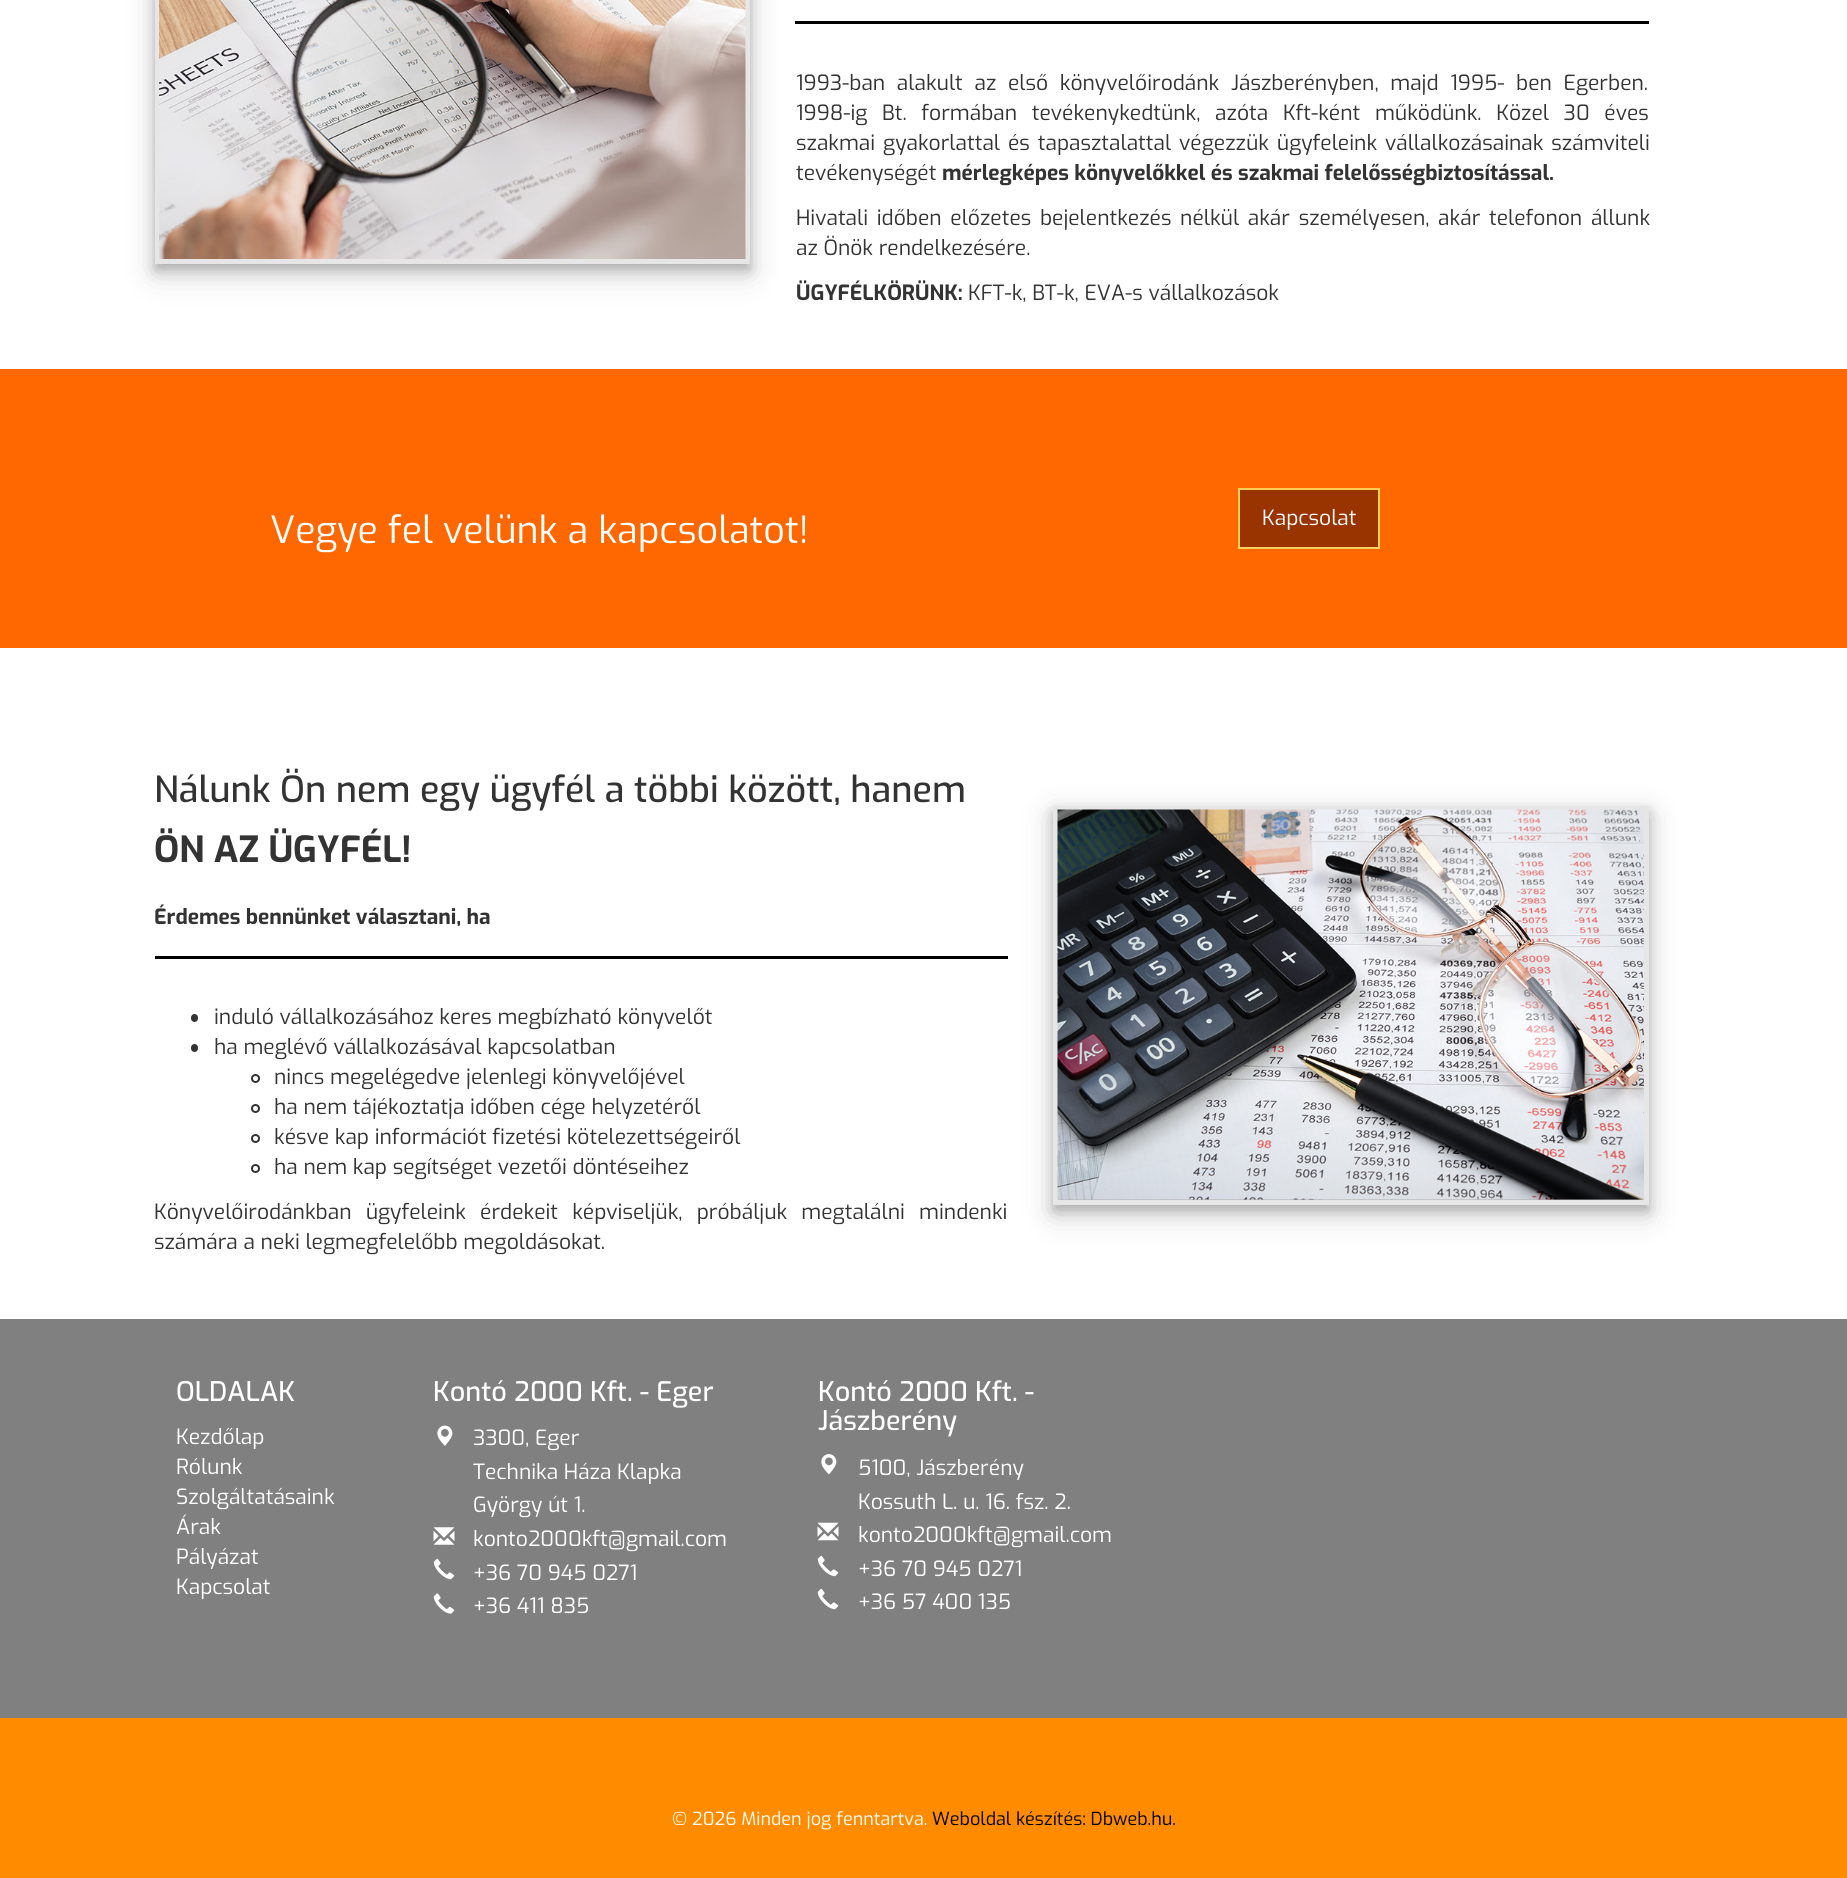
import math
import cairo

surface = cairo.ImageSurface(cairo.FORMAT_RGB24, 1847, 1878)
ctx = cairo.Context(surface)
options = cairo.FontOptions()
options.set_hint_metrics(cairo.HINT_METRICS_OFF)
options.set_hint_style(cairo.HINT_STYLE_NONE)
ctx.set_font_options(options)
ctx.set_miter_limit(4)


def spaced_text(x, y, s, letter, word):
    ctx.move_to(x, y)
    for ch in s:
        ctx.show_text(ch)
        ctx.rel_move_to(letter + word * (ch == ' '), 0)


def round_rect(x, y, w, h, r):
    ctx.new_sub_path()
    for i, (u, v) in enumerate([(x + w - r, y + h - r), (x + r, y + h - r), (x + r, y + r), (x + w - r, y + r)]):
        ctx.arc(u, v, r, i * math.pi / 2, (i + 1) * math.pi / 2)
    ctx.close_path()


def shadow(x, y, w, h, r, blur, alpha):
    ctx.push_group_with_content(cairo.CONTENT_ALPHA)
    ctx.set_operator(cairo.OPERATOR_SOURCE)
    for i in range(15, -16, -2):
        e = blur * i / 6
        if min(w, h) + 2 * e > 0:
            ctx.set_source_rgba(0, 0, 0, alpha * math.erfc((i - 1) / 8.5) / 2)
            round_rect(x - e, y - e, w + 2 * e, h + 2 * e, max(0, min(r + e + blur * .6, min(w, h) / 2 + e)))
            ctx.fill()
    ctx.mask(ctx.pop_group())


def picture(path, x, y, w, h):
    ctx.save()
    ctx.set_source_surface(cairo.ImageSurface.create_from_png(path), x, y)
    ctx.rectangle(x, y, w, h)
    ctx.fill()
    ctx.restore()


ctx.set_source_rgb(1, 1, 1)
ctx.paint()
ctx.set_source_rgb(0, 0, 0)
shadow(155, -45, 595, 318, 0, 15, 0.19)
shadow(155, -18, 595, 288, 0, 6, 0.2)
ctx.rectangle(157.5, -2.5, 590, 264)
ctx.set_source_rgb(0.902, 0.902, 0.902)
ctx.set_line_width(5)
ctx.stroke()
picture("img1.png", 159, 0, 587, 259)
ctx.set_source_rgb(0, 0, 0)
ctx.rectangle(795, 21, 854, 3)
ctx.fill()
ctx.select_font_face("Exo")
ctx.set_font_size(21)
ctx.set_source_rgb(0.2, 0.2, 0.2)
spaced_text(796, 90, "1993-ban alakult az első könyvelőirodánk Jászberényben, majd 1995- ben Egerben.", 0, 6)
spaced_text(796, 120, "1998-ig Bt. formában tevékenykedtünk, azóta Kft-ként működünk. Közel 30 éves", 0, 9)
spaced_text(796, 150, "szakmai gyakorlattal és tapasztalattal végezzük ügyfeleink vállalkozásainak számviteli", 0, 2.25)
ctx.move_to(796, 180)
ctx.show_text("tevékenységét")
ctx.select_font_face("Exo", cairo.FONT_SLANT_NORMAL, cairo.FONT_WEIGHT_BOLD)
ctx.move_to(942, 180)
ctx.show_text("mérlegképes könyvelőkkel és szakmai felelősségbiztosítással.")
ctx.select_font_face("Exo")
spaced_text(796, 225, "Hivatali időben előzetes bejelentkezés nélkül akár személyesen, akár telefonon állunk", 0, 3)
ctx.move_to(796, 255)
ctx.show_text("az Önök rendelkezésére.")
ctx.select_font_face("Exo", cairo.FONT_SLANT_NORMAL, cairo.FONT_WEIGHT_BOLD)
ctx.move_to(796, 300)
ctx.show_text("ÜGYFÉLKÖRÜNK:")
ctx.select_font_face("Exo")
ctx.move_to(968, 300)
ctx.show_text("KFT-k, BT-k, EVA-s vállalkozások")
ctx.set_source_rgb(1, 0.404, 0)
ctx.rectangle(0, 369, 1847, 279)
ctx.fill()
ctx.set_font_size(37.5)
ctx.set_source_rgb(1, 1, 1)
ctx.move_to(270, 543)
ctx.show_text("Vegye fel velünk a kapcsolatot!")
ctx.set_source_rgb(0.6, 0.2, 0)
ctx.rectangle(1239, 489, 140, 59)
ctx.fill_preserve()
ctx.set_source_rgb(0.965, 0.82, 0.333)
ctx.set_line_width(2)
ctx.stroke()
ctx.set_font_size(21)
ctx.set_source_rgb(1, 1, 1)
ctx.move_to(1262, 525)
ctx.show_text("Kapcsolat")
ctx.select_font_face("Exo Medium")
ctx.set_font_size(36)
ctx.set_source_rgb(0.2, 0.2, 0.2)
ctx.move_to(154, 802)
ctx.show_text("Nálunk Ön nem egy ügyfél a többi között, hanem")
ctx.select_font_face("Exo", cairo.FONT_SLANT_NORMAL, cairo.FONT_WEIGHT_BOLD)
ctx.move_to(154, 862)
ctx.show_text("ÖN AZ ÜGYFÉL!")
ctx.set_source_rgb(0, 0, 0)
ctx.rectangle(155, 956, 853, 3)
ctx.fill()
ctx.set_font_size(21)
ctx.set_source_rgb(0.2, 0.2, 0.2)
ctx.move_to(154, 924)
ctx.show_text("Érdemes bennünket választani, ha")
round_rect(191, 1014, 7, 8, 3.5)
ctx.fill()
ctx.select_font_face("Exo")
ctx.move_to(214, 1024)
ctx.show_text("induló vállalkozásához keres megbízható könyvelőt")
round_rect(191, 1044, 7, 8, 3.5)
ctx.fill()
ctx.move_to(214, 1054)
ctx.show_text("ha meglévő vállalkozásával kapcsolatban")
ctx.new_path()
ctx.arc(255.5, 1078.5, 3.5, 0, 2 * math.pi)
ctx.stroke()
ctx.move_to(274, 1084)
ctx.show_text("nincs megelégedve jelenlegi könyvelőjével")
ctx.new_path()
ctx.arc(255.5, 1108.5, 3.5, 0, 2 * math.pi)
ctx.stroke()
ctx.move_to(274, 1114)
ctx.show_text("ha nem tájékoztatja időben cége helyzetéről")
ctx.new_path()
ctx.arc(255.5, 1138.5, 3.5, 0, 2 * math.pi)
ctx.stroke()
ctx.move_to(274, 1144)
ctx.show_text("késve kap információt fizetési kötelezettségeiről")
ctx.new_path()
ctx.arc(255.5, 1168.5, 3.5, 0, 2 * math.pi)
ctx.stroke()
ctx.move_to(274, 1174)
ctx.show_text("ha nem kap segítséget vezetői döntéseihez")
spaced_text(154, 1219, "Könyvelőirodánkban ügyfeleink érdekeit képviseljük, próbáljuk megtalálni mindenki", 0, 8.5)
ctx.move_to(154, 1249)
ctx.show_text("számára a neki legmegfelelőbb megoldásokat.")
ctx.set_source_rgb(0, 0, 0)
shadow(1053, 815, 596, 399, 0, 15, 0.19)
shadow(1053, 812, 596, 399, 0, 6, 0.2)
ctx.rectangle(1055.5, 808.5, 591, 394)
ctx.set_source_rgb(0.902, 0.902, 0.902)
ctx.set_line_width(5)
ctx.stroke()
picture("img2.png", 1057, 809, 587, 391)
ctx.set_source_rgb(0.502, 0.502, 0.502)
ctx.rectangle(0, 1319, 1847, 399)
ctx.fill()
ctx.select_font_face("Exo Medium")
ctx.set_font_size(27)
ctx.set_source_rgb(1, 1, 1)
ctx.move_to(176, 1401)
ctx.show_text("OLDALAK")
ctx.select_font_face("Exo")
ctx.set_font_size(21)
ctx.move_to(176, 1444)
ctx.show_text("Kezdőlap")
ctx.move_to(176, 1474)
ctx.show_text("Rólunk")
ctx.move_to(176, 1504)
ctx.show_text("Szolgáltatásaink")
ctx.move_to(176, 1534)
ctx.show_text("Árak")
ctx.move_to(176, 1564)
ctx.show_text("Pályázat")
ctx.move_to(176, 1594)
ctx.show_text("Kapcsolat")
ctx.select_font_face("Exo Medium")
ctx.set_font_size(27)
ctx.move_to(433, 1401)
ctx.show_text("Kontó 2000 Kft. - Eger")
picture("img3.png", 437, 1425, 16, 21)
ctx.select_font_face("Exo")
ctx.set_font_size(21)
ctx.move_to(473, 1445)
ctx.show_text("3300, Eger")
ctx.move_to(473, 1479)
ctx.show_text("Technika Háza Klapka")
ctx.move_to(473, 1512)
ctx.show_text("György út 1.")
picture("img4.png", 433, 1527, 22, 18)
ctx.move_to(473, 1546)
ctx.show_text("konto2000kft@gmail.com")
picture("img5.png", 433, 1558, 22, 22)
ctx.move_to(473, 1580)
ctx.show_text("+36 70 945 0271")
picture("img6.png", 433, 1593, 22, 21)
ctx.move_to(473, 1613)
ctx.show_text("+36 411 835")
ctx.select_font_face("Exo Medium")
ctx.set_font_size(27)
ctx.move_to(818, 1401)
ctx.show_text("Kontó 2000 Kft. -")
ctx.move_to(818, 1430)
ctx.show_text("Jászberény")
picture("img7.png", 821, 1454, 16, 21)
ctx.select_font_face("Exo")
ctx.set_font_size(21)
ctx.move_to(858, 1475)
ctx.show_text("5100, Jászberény")
ctx.move_to(858, 1509)
ctx.show_text("Kossuth L. u. 16. fsz. 2.")
picture("img8.png", 817, 1522, 22, 19)
ctx.move_to(858, 1542)
ctx.show_text("konto2000kft@gmail.com")
picture("img5.png", 817, 1555, 22, 22)
ctx.move_to(858, 1576)
ctx.show_text("+36 70 945 0271")
picture("img5.png", 817, 1588, 22, 22)
ctx.move_to(858, 1609)
ctx.show_text("+36 57 400 135")
ctx.set_source_rgb(1, 0.549, 0)
ctx.rectangle(0, 1718, 1847, 160)
ctx.fill()
ctx.set_font_size(18)
ctx.set_source_rgb(1, 1, 1)
ctx.move_to(672, 1825)
ctx.show_text("© 2026 Minden jog fenntartva.")
ctx.set_source_rgb(0, 0, 0)
ctx.move_to(932, 1825)
ctx.show_text("Weboldal készítés: Dbweb.hu.")
surface.write_to_png("page.png")
